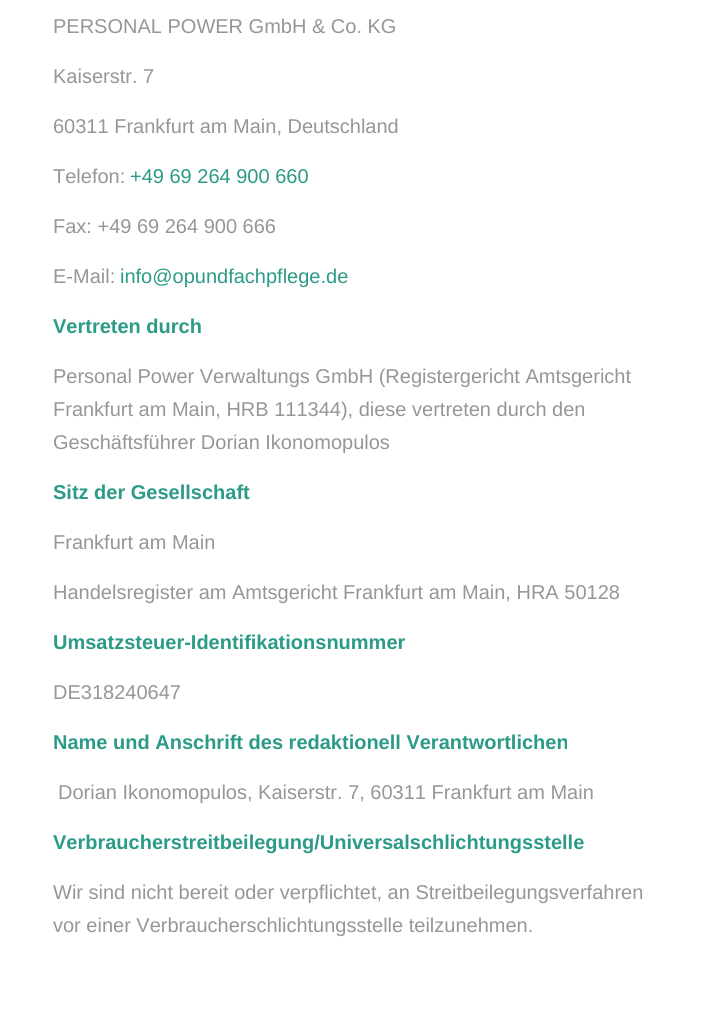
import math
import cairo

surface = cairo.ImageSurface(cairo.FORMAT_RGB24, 701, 1021)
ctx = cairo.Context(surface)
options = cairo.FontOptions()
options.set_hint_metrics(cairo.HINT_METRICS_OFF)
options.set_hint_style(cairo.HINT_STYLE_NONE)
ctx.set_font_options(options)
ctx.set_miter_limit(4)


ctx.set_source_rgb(1, 1, 1)
ctx.paint()
ctx.select_font_face("Liberation Sans")
ctx.set_font_size(20)
ctx.set_source_rgb(0.588, 0.588, 0.588)
ctx.move_to(53, 33)
ctx.show_text("PERSONAL POWER GmbH & Co. KG")
ctx.move_to(53, 83)
ctx.show_text("Kaiserstr. 7")
ctx.move_to(53, 133)
ctx.show_text("60311 Frankfurt am Main, Deutschland")
ctx.move_to(53, 183)
ctx.show_text("Telefon:")
ctx.set_source_rgb(0.169, 0.604, 0.525)
ctx.move_to(130, 183)
ctx.show_text("+49 69 264 900 660")
ctx.set_source_rgb(0.588, 0.588, 0.588)
ctx.move_to(53, 233)
ctx.show_text("Fax: +49 69 264 900 666")
ctx.move_to(53, 283)
ctx.show_text("E-Mail:")
ctx.set_source_rgb(0.169, 0.604, 0.525)
ctx.move_to(120, 283)
ctx.show_text("info@opundfachpflege.de")
ctx.select_font_face("Liberation Sans", cairo.FONT_SLANT_NORMAL, cairo.FONT_WEIGHT_BOLD)
ctx.move_to(53, 333)
ctx.show_text("Vertreten durch")
ctx.select_font_face("Liberation Sans")
ctx.set_source_rgb(0.588, 0.588, 0.588)
ctx.move_to(53, 383)
ctx.show_text("Personal Power Verwaltungs GmbH (Registergericht Amtsgericht")
ctx.move_to(53, 416)
ctx.show_text("Frankfurt am Main, HRB 111344), diese vertreten durch den")
ctx.move_to(53, 449)
ctx.show_text("Geschäftsführer Dorian Ikonomopulos")
ctx.select_font_face("Liberation Sans", cairo.FONT_SLANT_NORMAL, cairo.FONT_WEIGHT_BOLD)
ctx.set_source_rgb(0.169, 0.604, 0.525)
ctx.move_to(53, 499)
ctx.show_text("Sitz der Gesellschaft")
ctx.select_font_face("Liberation Sans")
ctx.set_source_rgb(0.588, 0.588, 0.588)
ctx.move_to(53, 549)
ctx.show_text("Frankfurt am Main")
ctx.move_to(53, 599)
ctx.show_text("Handelsregister am Amtsgericht Frankfurt am Main, HRA 50128")
ctx.select_font_face("Liberation Sans", cairo.FONT_SLANT_NORMAL, cairo.FONT_WEIGHT_BOLD)
ctx.set_source_rgb(0.169, 0.604, 0.525)
ctx.move_to(53, 649)
ctx.show_text("Umsatzsteuer-Identifikationsnummer")
ctx.select_font_face("Liberation Sans")
ctx.set_source_rgb(0.588, 0.588, 0.588)
ctx.move_to(53, 699)
ctx.show_text("DE318240647")
ctx.select_font_face("Liberation Sans", cairo.FONT_SLANT_NORMAL, cairo.FONT_WEIGHT_BOLD)
ctx.set_source_rgb(0.169, 0.604, 0.525)
ctx.move_to(53, 749)
ctx.show_text("Name und Anschrift des redaktionell Verantwortlichen")
ctx.select_font_face("Liberation Sans")
ctx.set_source_rgb(0.588, 0.588, 0.588)
ctx.move_to(58, 799)
ctx.show_text("Dorian Ikonomopulos, Kaiserstr. 7, 60311 Frankfurt am Main")
ctx.select_font_face("Liberation Sans", cairo.FONT_SLANT_NORMAL, cairo.FONT_WEIGHT_BOLD)
ctx.set_source_rgb(0.169, 0.604, 0.525)
ctx.move_to(53, 849)
ctx.show_text("Verbraucherstreitbeilegung/Universalschlichtungsstelle")
ctx.select_font_face("Liberation Sans")
ctx.set_source_rgb(0.588, 0.588, 0.588)
ctx.move_to(53, 899)
ctx.show_text("Wir sind nicht bereit oder verpflichtet, an Streitbeilegungsverfahren")
ctx.move_to(53, 932)
ctx.show_text("vor einer Verbraucherschlichtungsstelle teilzunehmen.")
surface.write_to_png("page.png")
